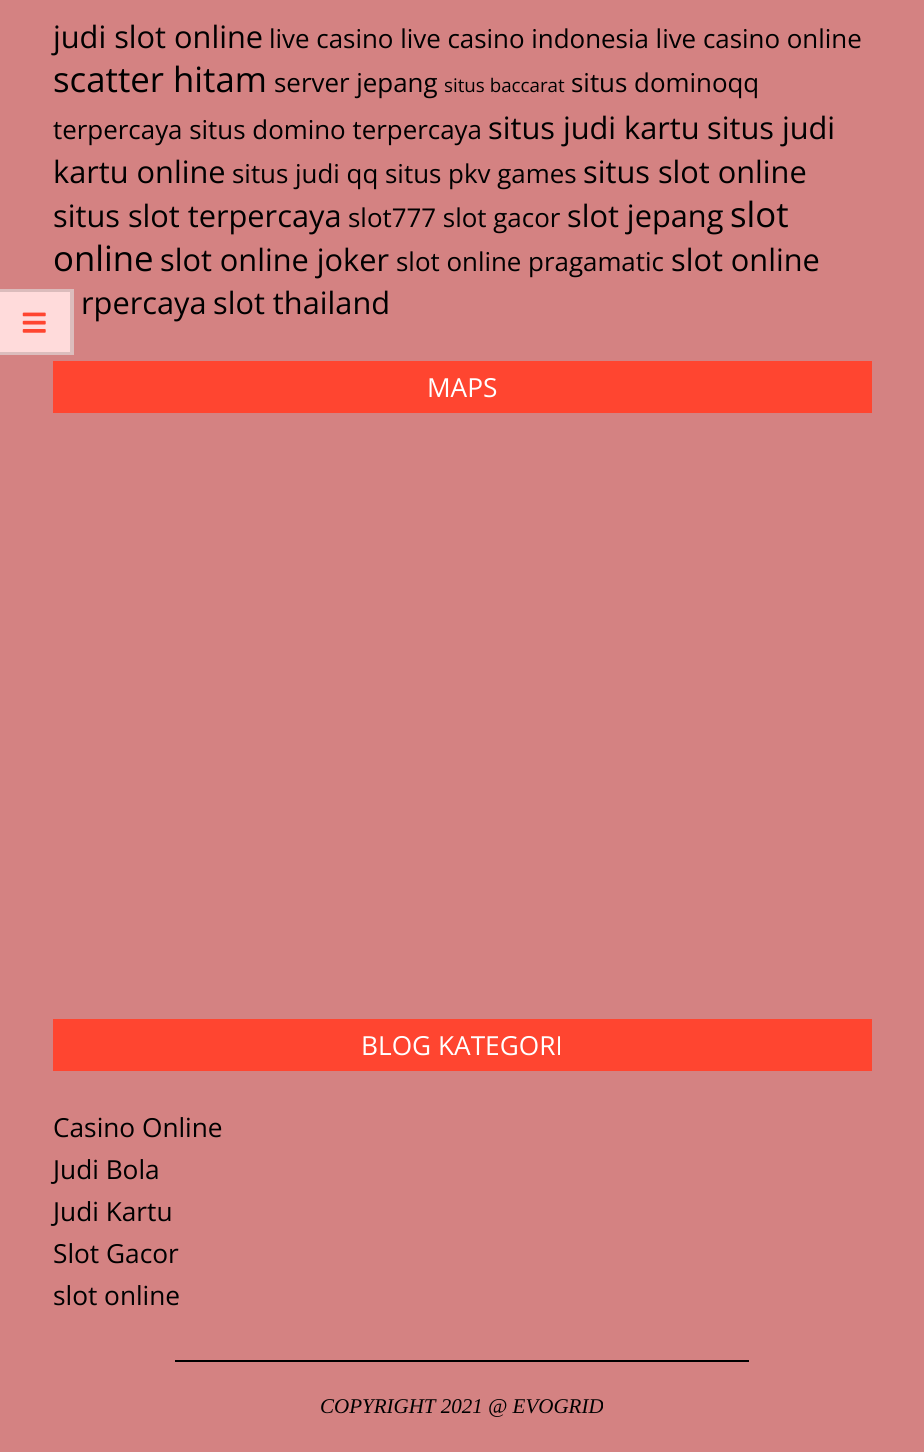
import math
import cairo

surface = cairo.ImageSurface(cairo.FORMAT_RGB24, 924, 1452)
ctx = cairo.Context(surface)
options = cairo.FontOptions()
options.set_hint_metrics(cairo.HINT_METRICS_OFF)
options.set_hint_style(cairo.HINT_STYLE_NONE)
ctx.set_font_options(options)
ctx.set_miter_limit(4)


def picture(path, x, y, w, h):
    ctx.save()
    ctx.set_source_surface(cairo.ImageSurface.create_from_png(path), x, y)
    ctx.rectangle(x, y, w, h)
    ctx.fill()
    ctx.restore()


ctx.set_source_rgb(0.831, 0.51, 0.51)
ctx.paint()
ctx.set_source_rgb(1, 0.859, 0.859)
ctx.rectangle(0, 289, 74, 66)
ctx.fill()
ctx.set_source_rgb(0.859, 0.737, 0.737)
ctx.new_path()
ctx.move_to(0, 289)
ctx.line_to(74, 289)
ctx.line_to(70, 292)
ctx.line_to(0, 292)
ctx.close_path()
ctx.fill()
ctx.set_source_rgba(0, 0, 0, 0.14)
ctx.new_path()
ctx.move_to(74, 289)
ctx.line_to(74, 355)
ctx.line_to(70, 352)
ctx.line_to(70, 292)
ctx.close_path()
ctx.fill()
ctx.new_path()
ctx.move_to(74, 355)
ctx.line_to(0, 355)
ctx.line_to(0, 352)
ctx.line_to(70, 352)
ctx.close_path()
ctx.fill()
picture("img1.png", 22, 312, 24, 21)
ctx.select_font_face("Open Sans")
ctx.set_font_size(30.75)
ctx.set_source_rgb(0, 0, 0)
ctx.move_to(53, 48)
ctx.show_text("judi slot online")
ctx.set_font_size(25.9)
ctx.move_to(269, 48)
ctx.show_text("live casino live casino indonesia live casino online")
ctx.set_font_size(34.75)
ctx.move_to(53, 92)
ctx.show_text("scatter hitam")
ctx.set_font_size(25.9)
ctx.move_to(274, 92)
ctx.show_text("server jepang")
ctx.set_font_size(18.75)
ctx.move_to(444, 92)
ctx.show_text("situs baccarat")
ctx.set_font_size(25.9)
ctx.move_to(571, 92)
ctx.show_text("situs dominoqq")
ctx.move_to(53, 139)
ctx.show_text("terpercaya situs domino terpercaya")
ctx.set_font_size(30.75)
ctx.move_to(488, 139)
ctx.show_text("situs judi kartu")
ctx.move_to(707, 139)
ctx.show_text("situs judi")
ctx.move_to(53, 183)
ctx.show_text("kartu online")
ctx.set_font_size(25.9)
ctx.move_to(232, 183)
ctx.show_text("situs judi qq situs pkv games")
ctx.set_font_size(30.75)
ctx.move_to(583, 183)
ctx.show_text("situs slot online")
ctx.move_to(53, 227)
ctx.show_text("situs slot terpercaya")
ctx.set_font_size(25.9)
ctx.move_to(348, 227)
ctx.show_text("slot777 slot gacor")
ctx.set_font_size(30.75)
ctx.move_to(567, 227)
ctx.show_text("slot jepang")
ctx.set_font_size(34.75)
ctx.move_to(730, 227)
ctx.show_text("slot")
ctx.move_to(53, 271)
ctx.show_text("online")
ctx.set_font_size(30.75)
ctx.move_to(160, 271)
ctx.show_text("slot online joker")
ctx.set_font_size(25.9)
ctx.move_to(396, 271)
ctx.show_text("slot online pragamatic")
ctx.set_font_size(30.75)
ctx.move_to(671, 271)
ctx.show_text("slot online")
ctx.move_to(81, 314)
ctx.show_text("rpercaya")
ctx.move_to(213, 314)
ctx.show_text("slot thailand")
ctx.set_source_rgb(1, 0.271, 0.188)
ctx.rectangle(53, 361, 819, 52)
ctx.fill()
ctx.set_font_size(26.25)
ctx.set_source_rgb(1, 1, 1)
ctx.move_to(427, 397)
ctx.show_text("MAPS")
ctx.set_source_rgb(1, 0.271, 0.188)
ctx.rectangle(53, 1019, 819, 52)
ctx.fill()
ctx.set_source_rgb(1, 1, 1)
ctx.move_to(361, 1055)
ctx.show_text("BLOG KATEGORI")
ctx.set_source_rgb(0, 0, 0)
ctx.move_to(53, 1137)
ctx.show_text("Casino Online")
ctx.move_to(53, 1179)
ctx.show_text("Judi Bola")
ctx.move_to(53, 1221)
ctx.show_text("Judi Kartu")
ctx.move_to(53, 1263)
ctx.show_text("Slot Gacor")
ctx.move_to(53, 1305)
ctx.show_text("slot online")
ctx.rectangle(175, 1360, 574, 2)
ctx.fill()
ctx.select_font_face("Liberation Serif", cairo.FONT_SLANT_ITALIC)
ctx.set_font_size(21)
ctx.move_to(320, 1413)
ctx.show_text("COPYRIGHT 2021 @ EVOGRID")
surface.write_to_png("page.png")
